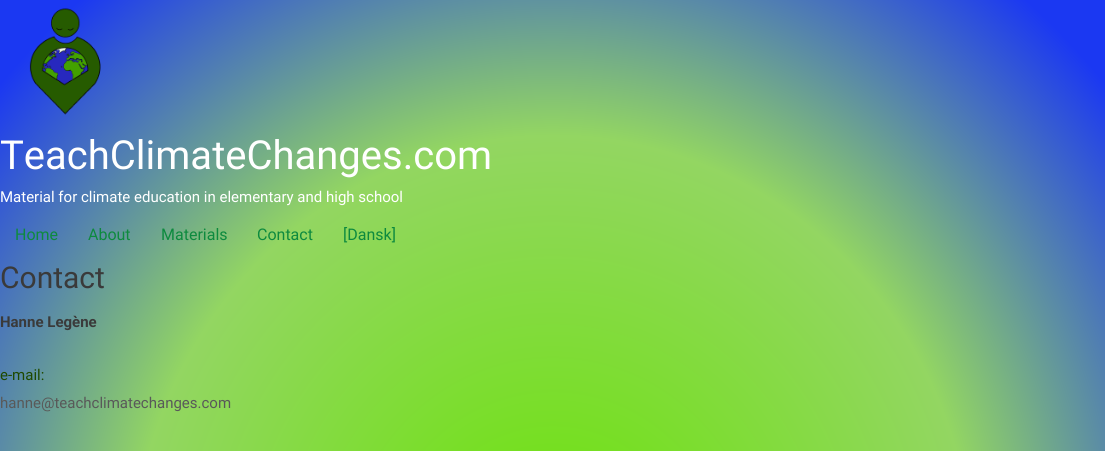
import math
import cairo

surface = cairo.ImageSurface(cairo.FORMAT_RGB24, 1105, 451)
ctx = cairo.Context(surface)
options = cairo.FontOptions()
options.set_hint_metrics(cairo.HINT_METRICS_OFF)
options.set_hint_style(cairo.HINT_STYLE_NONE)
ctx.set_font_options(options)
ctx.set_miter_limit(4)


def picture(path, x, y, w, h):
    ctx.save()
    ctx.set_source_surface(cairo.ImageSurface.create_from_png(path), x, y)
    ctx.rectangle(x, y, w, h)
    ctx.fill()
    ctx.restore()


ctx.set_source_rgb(1, 1, 1)
ctx.paint()
gradient = cairo.RadialGradient(0, 0, 0, 0, 0, 1)
gradient.set_matrix(cairo.Matrix(1 / 781, 0, 0, 1 / 815, -1 * 553 / 781, -1 * 576 / 815))
gradient.add_color_stop_rgba(0, 0.416, 0.89, 0.027, 1)
gradient.add_color_stop_rgba(0.54, 0.576, 0.839, 0.384, 1)
gradient.add_color_stop_rgba(0.93, 0.106, 0.22, 0.949, 1)
ctx.set_source(gradient)
ctx.rectangle(0, 0, 1105, 451)
ctx.fill()
picture("img1.png", 29, 8, 72, 107)
ctx.select_font_face("Roboto")
ctx.set_font_size(40)
ctx.set_source_rgb(1, 1, 1)
ctx.move_to(0, 169)
ctx.show_text("TeachClimateChanges.com")
ctx.set_font_size(15)
ctx.move_to(0, 202)
ctx.show_text("Material for climate education in elementary and high school")
ctx.set_font_size(16)
ctx.set_source_rgb(0.051, 0.541, 0.243)
ctx.move_to(15, 240)
ctx.show_text("Home")
ctx.move_to(88, 240)
ctx.show_text("About")
ctx.move_to(161, 240)
ctx.show_text("Materials")
ctx.move_to(257, 240)
ctx.show_text("Contact")
ctx.move_to(343, 240)
ctx.show_text("[Dansk]")
ctx.set_font_size(30)
ctx.set_source_rgb(0.227, 0.227, 0.227)
ctx.move_to(0, 288)
ctx.show_text("Contact")
ctx.select_font_face("Roboto", cairo.FONT_SLANT_NORMAL, cairo.FONT_WEIGHT_BOLD)
ctx.set_font_size(15)
ctx.move_to(0, 327)
ctx.show_text("Hanne Legène")
ctx.select_font_face("Roboto")
ctx.set_source_rgb(0.118, 0.286, 0)
ctx.move_to(0, 380)
ctx.show_text("e-mail:")
ctx.set_source_rgb(0.349, 0.349, 0.349)
ctx.move_to(0, 408)
ctx.show_text("hanne@teachclimatechanges.com")
surface.write_to_png("page.png")
